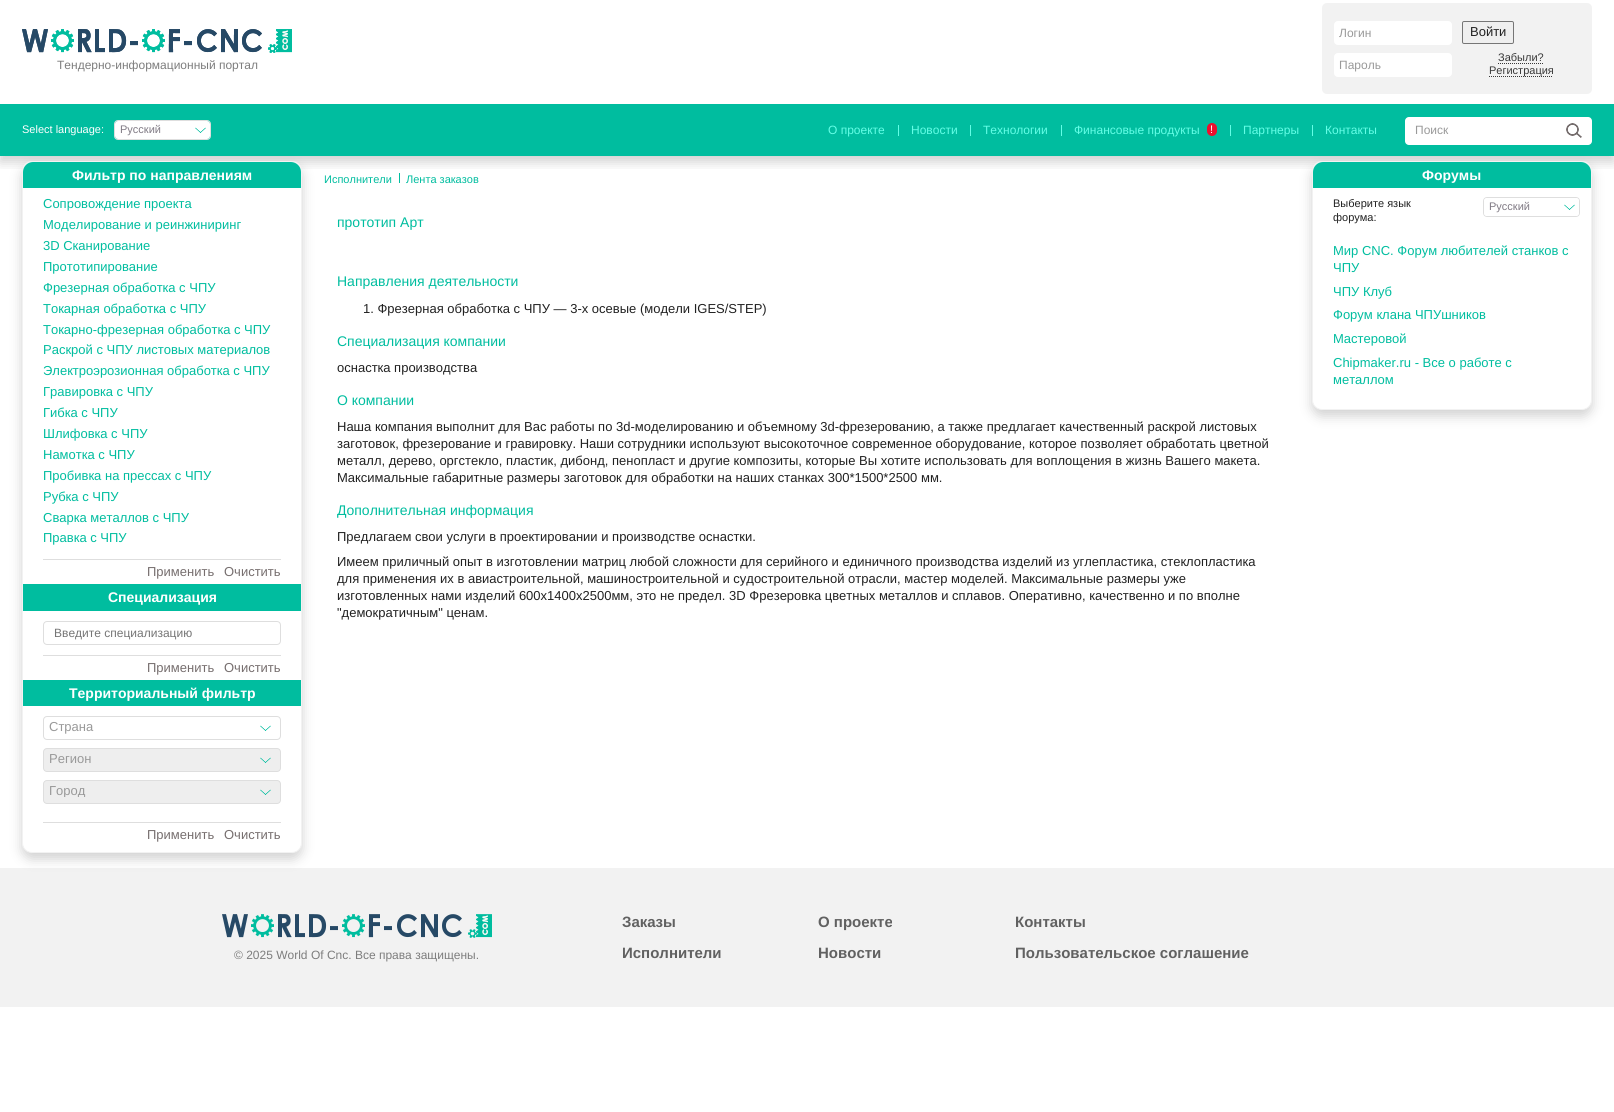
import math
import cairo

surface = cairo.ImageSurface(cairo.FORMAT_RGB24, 1614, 1112)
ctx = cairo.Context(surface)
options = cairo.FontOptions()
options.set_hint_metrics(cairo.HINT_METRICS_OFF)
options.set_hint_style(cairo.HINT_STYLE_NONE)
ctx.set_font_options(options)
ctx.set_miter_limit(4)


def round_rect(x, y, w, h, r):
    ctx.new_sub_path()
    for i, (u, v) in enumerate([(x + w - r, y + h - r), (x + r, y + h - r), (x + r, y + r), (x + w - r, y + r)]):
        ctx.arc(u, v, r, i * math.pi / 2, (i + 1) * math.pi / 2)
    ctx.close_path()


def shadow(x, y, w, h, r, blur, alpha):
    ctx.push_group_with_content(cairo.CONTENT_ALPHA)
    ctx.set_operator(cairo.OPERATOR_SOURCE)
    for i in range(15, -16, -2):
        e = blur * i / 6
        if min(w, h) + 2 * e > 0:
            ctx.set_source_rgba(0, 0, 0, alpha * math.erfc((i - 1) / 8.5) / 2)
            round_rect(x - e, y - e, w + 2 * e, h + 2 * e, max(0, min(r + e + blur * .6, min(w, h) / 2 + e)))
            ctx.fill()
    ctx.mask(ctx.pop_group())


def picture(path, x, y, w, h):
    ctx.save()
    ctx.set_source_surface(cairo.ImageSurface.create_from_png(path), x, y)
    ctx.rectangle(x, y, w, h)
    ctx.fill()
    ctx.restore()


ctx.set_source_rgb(1, 1, 1)
ctx.paint()
ctx.save()
ctx.rectangle(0, 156, 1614, 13)
ctx.clip()
ctx.set_source_rgb(0, 0, 0)
shadow(0, 6, 1614, 156, 0, 6, 0.18)
ctx.restore()
picture("img1.png", 22, 29, 270, 24)
picture("img2.png", 22, 29, 270, 24)
ctx.select_font_face("Liberation Sans")
ctx.set_font_size(12)
ctx.set_source_rgb(0.49, 0.49, 0.49)
ctx.move_to(57, 69)
ctx.show_text("Тендерно-информационный портал")
ctx.set_source_rgb(0.949, 0.949, 0.949)
round_rect(1322, 3, 270, 91, 5)
ctx.fill()
ctx.set_source_rgb(1, 1, 1)
round_rect(1334, 21, 118, 24, 4)
ctx.fill()
ctx.set_source_rgb(0.6, 0.6, 0.6)
ctx.move_to(1339, 37)
ctx.show_text("Логин")
ctx.set_source_rgb(1, 1, 1)
round_rect(1334, 53, 118, 24, 4)
ctx.fill()
ctx.set_source_rgb(0.6, 0.6, 0.6)
ctx.move_to(1339, 69)
ctx.show_text("Пароль")
ctx.set_source_rgb(0.937, 0.937, 0.937)
round_rect(1462.5, 21.5, 51, 22, 1.5)
ctx.fill_preserve()
ctx.set_source_rgb(0.463, 0.463, 0.463)
ctx.set_line_width(1)
ctx.stroke()
ctx.set_font_size(13)
ctx.set_source_rgb(0.129, 0.129, 0.129)
ctx.move_to(1470, 36)
ctx.show_text("Войти")
ctx.set_font_size(11)
ctx.set_source_rgb(0.22, 0.22, 0.22)
ctx.move_to(1498, 61)
ctx.show_text("Забыли?")
ctx.new_path()
ctx.move_to(1498, 63.5)
ctx.line_to(1544, 63.5)
ctx.set_dash([1, 1])
ctx.stroke()
ctx.new_path()
ctx.move_to(1489, 76.5)
ctx.line_to(1553, 76.5)
ctx.stroke()
ctx.move_to(1489, 74)
ctx.show_text("Регистрация")
ctx.set_source_rgb(0, 0.741, 0.624)
ctx.rectangle(0, 104, 1614, 52)
ctx.fill()
ctx.set_source_rgb(1, 1, 1)
ctx.move_to(22, 133)
ctx.show_text("Select language:")
round_rect(114.5, 120.5, 96, 19, 3.5)
ctx.set_source_rgb(0.871, 0.871, 0.871)
ctx.set_dash([])
ctx.stroke()
ctx.set_source_rgb(1, 1, 1)
round_rect(115, 121, 95, 18, 3)
ctx.fill()
ctx.set_source_rgb(0.502, 0.478, 0.518)
ctx.move_to(120, 133)
ctx.show_text("Русский")
picture("img3.png", 195, 127, 11, 6)
ctx.set_font_size(12)
ctx.set_source_rgb(0.392, 0.996, 0.902)
ctx.move_to(828, 134)
ctx.show_text("О проекте")
ctx.rectangle(898, 125, 1, 11)
ctx.fill()
ctx.move_to(911, 134)
ctx.show_text("Новости")
ctx.rectangle(970, 125, 1, 11)
ctx.fill()
ctx.move_to(983, 134)
ctx.show_text("Технологии")
ctx.rectangle(1061, 125, 1, 11)
ctx.fill()
ctx.move_to(1074, 134)
ctx.show_text("Финансовые продукты")
ctx.set_source_rgb(0.925, 0.059, 0.18)
round_rect(1207, 123, 10, 13, 5)
ctx.fill()
ctx.set_font_size(11)
ctx.set_source_rgb(1, 1, 1)
ctx.move_to(1210, 133)
ctx.show_text("!")
ctx.set_source_rgb(0.392, 0.996, 0.902)
ctx.rectangle(1230, 125, 1, 11)
ctx.fill()
ctx.set_font_size(12)
ctx.move_to(1243, 134)
ctx.show_text("Партнеры")
ctx.rectangle(1312, 125, 1, 11)
ctx.fill()
ctx.move_to(1325, 134)
ctx.show_text("Контакты")
ctx.set_source_rgb(1, 1, 1)
round_rect(1405, 117, 187, 28, 4)
ctx.fill()
ctx.set_source_rgb(0.6, 0.6, 0.6)
ctx.move_to(1415, 134)
ctx.show_text("Поиск")
picture("img4.png", 1566, 123, 16, 15)
ctx.set_source_rgb(0.949, 0.949, 0.949)
ctx.rectangle(0, 868, 1614, 139)
ctx.fill()
ctx.set_source_rgb(0, 0, 0)
shadow(22, 167, 280, 692, 10, 6, 0.18)
ctx.set_source_rgb(1, 1, 1)
round_rect(22.5, 161.5, 279, 691, 9.5)
ctx.fill_preserve()
ctx.set_source_rgb(0.949, 0.949, 0.949)
ctx.stroke()
ctx.set_source_rgb(0, 0.741, 0.624)
ctx.new_path()
ctx.move_to(33, 162)
ctx.line_to(291, 162)
ctx.curve_to(296.5, 162, 301, 166.5, 301, 172)
ctx.line_to(301, 188)
ctx.line_to(23, 188)
ctx.line_to(23, 172)
ctx.curve_to(23, 166.5, 27.5, 162, 33, 162)
ctx.close_path()
ctx.fill()
ctx.select_font_face("Liberation Sans", cairo.FONT_SLANT_NORMAL, cairo.FONT_WEIGHT_BOLD)
ctx.set_font_size(14)
ctx.set_source_rgb(1, 1, 1)
ctx.move_to(72, 180)
ctx.show_text("Фильтр по направлениям")
ctx.set_source_rgb(0.871, 0.871, 0.871)
ctx.rectangle(43, 559, 238, 1)
ctx.fill()
ctx.select_font_face("Liberation Sans")
ctx.set_font_size(13)
ctx.set_source_rgb(0, 0.741, 0.624)
ctx.move_to(43, 208)
ctx.show_text("Сопровождение проекта")
ctx.move_to(43, 229)
ctx.show_text("Моделирование и реинжиниринг")
ctx.move_to(43, 250)
ctx.show_text("3D Сканирование")
ctx.move_to(43, 271)
ctx.show_text("Прототипирование")
ctx.move_to(43, 292)
ctx.show_text("Фрезерная обработка с ЧПУ")
ctx.move_to(43, 313)
ctx.show_text("Токарная обработка с ЧПУ")
ctx.move_to(43, 334)
ctx.show_text("Токарно-фрезерная обработка с ЧПУ")
ctx.move_to(43, 354)
ctx.show_text("Раскрой с ЧПУ листовых материалов")
ctx.move_to(43, 375)
ctx.show_text("Электроэрозионная обработка с ЧПУ")
ctx.move_to(43, 396)
ctx.show_text("Гравировка с ЧПУ")
ctx.move_to(43, 417)
ctx.show_text("Гибка с ЧПУ")
ctx.move_to(43, 438)
ctx.show_text("Шлифовка с ЧПУ")
ctx.move_to(43, 459)
ctx.show_text("Намотка с ЧПУ")
ctx.move_to(43, 480)
ctx.show_text("Пробивка на прессах с ЧПУ")
ctx.move_to(43, 501)
ctx.show_text("Рубка с ЧПУ")
ctx.move_to(43, 522)
ctx.show_text("Сварка металлов с ЧПУ")
ctx.move_to(43, 542)
ctx.show_text("Правка с ЧПУ")
ctx.set_source_rgb(0.463, 0.431, 0.431)
ctx.move_to(147, 576)
ctx.show_text("Применить")
ctx.move_to(224, 576)
ctx.show_text("Очистить")
ctx.set_source_rgb(0, 0.741, 0.624)
ctx.rectangle(23, 584, 278, 27)
ctx.fill()
ctx.select_font_face("Liberation Sans", cairo.FONT_SLANT_NORMAL, cairo.FONT_WEIGHT_BOLD)
ctx.set_font_size(14)
ctx.set_source_rgb(1, 1, 1)
ctx.move_to(108, 602)
ctx.show_text("Специализация")
ctx.set_source_rgb(0.871, 0.871, 0.871)
ctx.rectangle(43, 655, 238, 1)
ctx.fill()
round_rect(43.5, 621.5, 237, 23, 3.5)
ctx.stroke()
ctx.select_font_face("Liberation Sans")
ctx.set_font_size(12)
ctx.set_source_rgb(0.459, 0.459, 0.459)
ctx.move_to(54, 637)
ctx.show_text("Введите специализацию")
ctx.set_font_size(13)
ctx.set_source_rgb(0.463, 0.431, 0.431)
ctx.move_to(147, 672)
ctx.show_text("Применить")
ctx.move_to(224, 672)
ctx.show_text("Очистить")
ctx.set_source_rgb(0, 0.741, 0.624)
ctx.rectangle(23, 680, 278, 26)
ctx.fill()
ctx.select_font_face("Liberation Sans", cairo.FONT_SLANT_NORMAL, cairo.FONT_WEIGHT_BOLD)
ctx.set_font_size(14)
ctx.set_source_rgb(1, 1, 1)
ctx.move_to(69, 698)
ctx.show_text("Территориальный фильтр")
ctx.set_source_rgb(0.871, 0.871, 0.871)
ctx.rectangle(43, 822, 238, 1)
ctx.fill()
round_rect(43.5, 716.5, 237, 23, 3.5)
ctx.stroke()
ctx.select_font_face("Liberation Sans")
ctx.set_font_size(13)
ctx.set_source_rgb(0.6, 0.6, 0.6)
ctx.move_to(49, 731)
ctx.show_text("Страна")
picture("img3.png", 260, 725, 11, 6)
ctx.set_source_rgb(0.933, 0.933, 0.933)
round_rect(43.5, 748.5, 237, 23, 3.5)
ctx.fill_preserve()
ctx.set_source_rgb(0.871, 0.871, 0.871)
ctx.stroke()
ctx.set_source_rgb(0.6, 0.6, 0.6)
ctx.move_to(49, 763)
ctx.show_text("Регион")
picture("img5.png", 260, 757, 11, 6)
ctx.set_source_rgb(0.933, 0.933, 0.933)
round_rect(43.5, 780.5, 237, 23, 3.5)
ctx.fill_preserve()
ctx.set_source_rgb(0.871, 0.871, 0.871)
ctx.stroke()
ctx.save()
ctx.rectangle(49, 784, 211, 13)
ctx.clip()
ctx.set_source_rgb(0.6, 0.6, 0.6)
ctx.move_to(49, 795)
ctx.show_text("Город")
ctx.restore()
picture("img5.png", 260, 789, 11, 6)
ctx.set_source_rgb(0.463, 0.431, 0.431)
ctx.move_to(147, 839)
ctx.show_text("Применить")
ctx.move_to(224, 839)
ctx.show_text("Очистить")
ctx.set_font_size(11)
ctx.set_source_rgb(0, 0.741, 0.624)
ctx.move_to(324, 183)
ctx.show_text("Исполнители")
ctx.rectangle(399, 173, 1, 10)
ctx.fill()
ctx.move_to(406, 183)
ctx.show_text("Лента заказов")
ctx.set_font_size(14)
ctx.move_to(337, 227)
ctx.show_text("прототип Арт")
ctx.move_to(337, 286)
ctx.show_text("Направления деятельности")
ctx.set_font_size(13)
ctx.set_source_rgb(0.129, 0.129, 0.129)
ctx.move_to(363, 313)
ctx.show_text("1. Фрезерная обработка с ЧПУ — 3-х осевые (модели IGES/STEP)")
ctx.set_font_size(14)
ctx.set_source_rgb(0, 0.741, 0.624)
ctx.move_to(337, 346)
ctx.show_text("Специализация компании")
ctx.set_font_size(13)
ctx.set_source_rgb(0.129, 0.129, 0.129)
ctx.move_to(337, 372)
ctx.show_text("оснастка производства")
ctx.set_font_size(14)
ctx.set_source_rgb(0, 0.741, 0.624)
ctx.move_to(337, 405)
ctx.show_text("О компании")
ctx.set_font_size(13)
ctx.set_source_rgb(0.129, 0.129, 0.129)
ctx.move_to(337, 431)
ctx.show_text("Наша компания выполнит для Вас работы по 3d-моделированию и объемному 3d-фрезерованию, а также предлагает качественный раскрой листовых")
ctx.move_to(337, 448)
ctx.show_text("заготовок, фрезерование и гравировку. Наши сотрудники используют высокоточное современное оборудование, которое позволяет обработать цветной")
ctx.move_to(337, 465)
ctx.show_text("металл, дерево, оргстекло, пластик, дибонд, пенопласт и другие композиты, которые Вы хотите использовать для воплощения в жизнь Вашего макета.")
ctx.move_to(337, 482)
ctx.show_text("Максимальные габаритные размеры заготовок для обработки на наших станках 300*1500*2500 мм.")
ctx.set_font_size(14)
ctx.set_source_rgb(0, 0.741, 0.624)
ctx.move_to(337, 515)
ctx.show_text("Дополнительная информация")
ctx.set_font_size(13)
ctx.set_source_rgb(0.129, 0.129, 0.129)
ctx.move_to(337, 541)
ctx.show_text("Предлагаем свои услуги в проектировании и производстве оснастки.")
ctx.move_to(337, 566)
ctx.show_text("Имеем приличный опыт в изготовлении матриц любой сложности для серийного и единичного производства изделий из углепластика, стеклопластика")
ctx.move_to(337, 583)
ctx.show_text("для применения их в авиастроительной, машиностроительной и судостроительной отрасли, мастер моделей. Максимальные размеры уже")
ctx.move_to(337, 600)
ctx.show_text("изготовленных нами изделий 600х1400х2500мм, это не предел. 3D Фрезеровка цветных металлов и сплавов. Оперативно, качественно и по вполне")
ctx.move_to(337, 617)
ctx.show_text("\"демократичным\" ценам.")
ctx.set_source_rgb(0, 0, 0)
shadow(1312, 167, 280, 249, 10, 6, 0.18)
ctx.set_source_rgb(1, 1, 1)
round_rect(1312.5, 161.5, 279, 248, 9.5)
ctx.fill_preserve()
ctx.set_source_rgb(0.949, 0.949, 0.949)
ctx.stroke()
ctx.set_source_rgb(0, 0.741, 0.624)
ctx.new_path()
ctx.move_to(1323, 162)
ctx.line_to(1581, 162)
ctx.curve_to(1586.5, 162, 1591, 166.5, 1591, 172)
ctx.line_to(1591, 188)
ctx.line_to(1313, 188)
ctx.line_to(1313, 172)
ctx.curve_to(1313, 166.5, 1317.5, 162, 1323, 162)
ctx.close_path()
ctx.fill()
ctx.select_font_face("Liberation Sans", cairo.FONT_SLANT_NORMAL, cairo.FONT_WEIGHT_BOLD)
ctx.set_font_size(14)
ctx.set_source_rgb(1, 1, 1)
ctx.move_to(1422, 180)
ctx.show_text("Форумы")
ctx.select_font_face("Liberation Sans")
ctx.set_font_size(11)
ctx.set_source_rgb(0.129, 0.129, 0.129)
ctx.move_to(1333, 207)
ctx.show_text("Выберите язык")
ctx.move_to(1333, 221)
ctx.show_text("форума:")
round_rect(1483.5, 197.5, 96, 19, 3.5)
ctx.set_source_rgb(0.871, 0.871, 0.871)
ctx.stroke()
ctx.set_source_rgb(1, 1, 1)
round_rect(1484, 198, 95, 18, 3)
ctx.fill()
ctx.set_source_rgb(0.502, 0.478, 0.518)
ctx.move_to(1489, 210)
ctx.show_text("Русский")
picture("img3.png", 1564, 204, 11, 6)
ctx.set_font_size(13)
ctx.set_source_rgb(0, 0.741, 0.624)
ctx.move_to(1333, 255)
ctx.show_text("Мир CNC. Форум любителей станков с")
ctx.move_to(1333, 272)
ctx.show_text("ЧПУ")
ctx.move_to(1333, 296)
ctx.show_text("ЧПУ Клуб")
ctx.move_to(1333, 319)
ctx.show_text("Форум клана ЧПУшников")
ctx.move_to(1333, 343)
ctx.show_text("Мастеровой")
ctx.move_to(1333, 367)
ctx.show_text("Chipmaker.ru - Все о работе с")
ctx.move_to(1333, 384)
ctx.show_text("металлом")
picture("img6.png", 222, 914, 270, 24)
ctx.set_font_size(12)
ctx.set_source_rgb(0.49, 0.49, 0.49)
ctx.move_to(234, 959)
ctx.show_text("© 2025 World Of Cnc. Все права защищены.")
ctx.select_font_face("Liberation Sans", cairo.FONT_SLANT_NORMAL, cairo.FONT_WEIGHT_BOLD)
ctx.set_font_size(15)
ctx.set_source_rgb(0.38, 0.38, 0.38)
ctx.move_to(622, 927)
ctx.show_text("Заказы")
ctx.move_to(818, 927)
ctx.show_text("О проекте")
ctx.move_to(1015, 927)
ctx.show_text("Контакты")
ctx.move_to(622, 958)
ctx.show_text("Исполнители")
ctx.move_to(818, 958)
ctx.show_text("Новости")
ctx.move_to(1015, 958)
ctx.show_text("Пользовательское соглашение")
surface.write_to_png("page.png")
